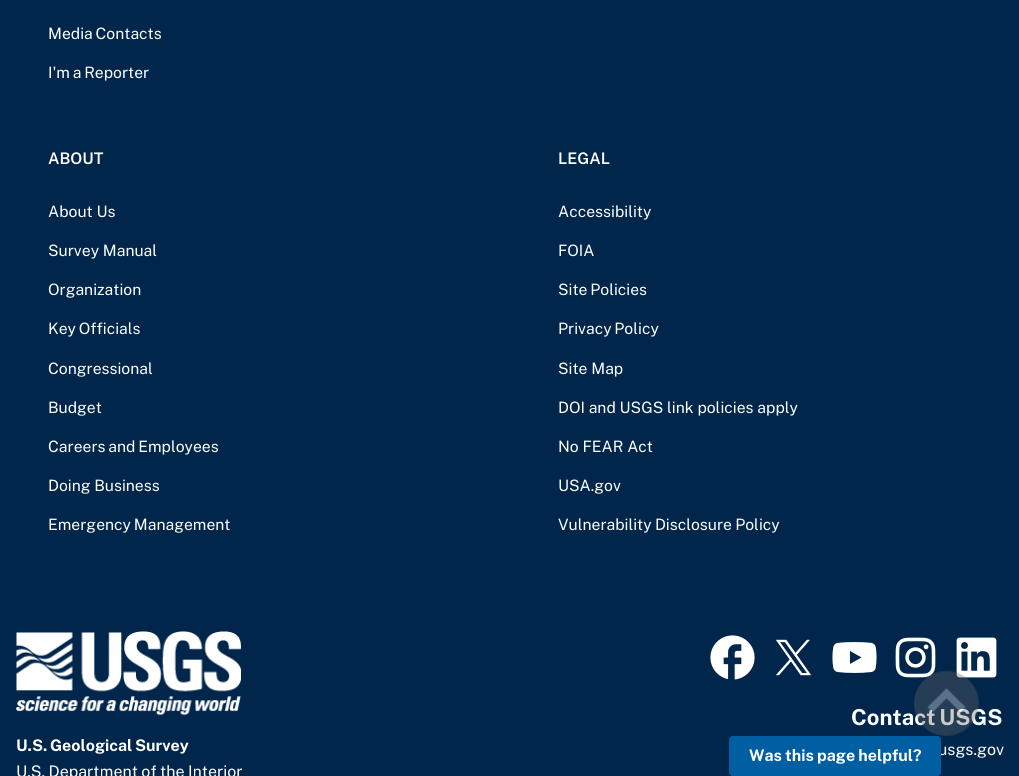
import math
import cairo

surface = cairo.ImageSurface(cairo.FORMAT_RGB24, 1019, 776)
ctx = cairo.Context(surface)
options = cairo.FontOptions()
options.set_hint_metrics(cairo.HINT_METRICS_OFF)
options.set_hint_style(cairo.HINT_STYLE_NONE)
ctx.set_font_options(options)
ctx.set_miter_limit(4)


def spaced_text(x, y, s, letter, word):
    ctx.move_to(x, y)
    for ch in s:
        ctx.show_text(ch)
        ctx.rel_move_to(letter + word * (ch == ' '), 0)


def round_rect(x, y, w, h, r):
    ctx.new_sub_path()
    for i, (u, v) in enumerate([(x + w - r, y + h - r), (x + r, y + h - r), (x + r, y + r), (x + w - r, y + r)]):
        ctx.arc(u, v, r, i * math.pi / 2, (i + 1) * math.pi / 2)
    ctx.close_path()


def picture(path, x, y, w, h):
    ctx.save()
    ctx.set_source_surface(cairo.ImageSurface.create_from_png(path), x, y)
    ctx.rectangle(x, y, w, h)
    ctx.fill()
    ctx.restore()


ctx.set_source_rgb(0, 0.149, 0.298)
ctx.paint()
ctx.select_font_face("Public Sans")
ctx.set_font_size(15.7)
ctx.set_source_rgb(1, 1, 1)
spaced_text(48, 39, "Media Contacts", 0, -1)
spaced_text(48, 78, "I'm a Reporter", 0, -1)
ctx.select_font_face("Public Sans SemiBold")
ctx.set_font_size(16)
ctx.move_to(48, 164)
ctx.show_text("ABOUT")
ctx.select_font_face("Public Sans")
ctx.set_font_size(15.7)
ctx.move_to(48, 217)
ctx.show_text("About Us")
ctx.move_to(48, 256)
ctx.show_text("Survey Manual")
ctx.move_to(48, 295)
ctx.show_text("Organization")
spaced_text(48, 334, "Key Officials", 0, -1)
ctx.move_to(48, 374)
ctx.show_text("Congressional")
ctx.move_to(48, 413)
ctx.show_text("Budget")
spaced_text(48, 452, "Careers and Employees", 0, -1)
ctx.move_to(48, 491)
ctx.show_text("Doing Business")
spaced_text(48, 530, "Emergency Management", 0, -1)
ctx.select_font_face("Public Sans SemiBold")
ctx.set_font_size(16)
ctx.move_to(558, 164)
ctx.show_text("LEGAL")
ctx.select_font_face("Public Sans")
ctx.set_font_size(15.7)
ctx.move_to(558, 217)
ctx.show_text("Accessibility")
ctx.move_to(558, 256)
ctx.show_text("FOIA")
spaced_text(558, 295, "Site Policies", 0, -1)
spaced_text(558, 334, "Privacy Policy", 0, -1)
ctx.move_to(558, 374)
ctx.show_text("Site Map")
ctx.move_to(558, 413)
ctx.show_text("DOI and USGS link policies apply")
ctx.move_to(558, 452)
ctx.show_text("No FEAR Act")
ctx.move_to(558, 491)
ctx.show_text("USA.gov")
spaced_text(558, 530, "Vulnerability Disclosure Policy", 0, -0.5)
picture("img6.png", 895, 637, 41, 41)
picture("img7.png", 956, 637, 41, 41)
ctx.select_font_face("Public Sans", cairo.FONT_SLANT_NORMAL, cairo.FONT_WEIGHT_BOLD)
ctx.set_font_size(22)
spaced_text(851, 725, "Contact USGS", 0, -1)
picture("img1.png", 914, 671, 65, 65)
picture("img2.png", 16, 631, 225, 85)
ctx.set_font_size(16)
spaced_text(16, 751, "U.S. Geological Survey", 0, -1)
ctx.select_font_face("Public Sans")
spaced_text(16, 777, "U.S. Department of the Interior", 0, -0.5)
picture("img3.png", 710, 635, 45, 45)
picture("img4.png", 775, 639, 37, 37)
picture("img5.png", 832, 642, 45, 31)
ctx.move_to(938, 755)
ctx.show_text("usgs.gov")
ctx.set_source_rgb(0, 0.369, 0.635)
round_rect(729, 736, 212, 40, 4)
ctx.fill()
ctx.select_font_face("Public Sans", cairo.FONT_SLANT_NORMAL, cairo.FONT_WEIGHT_BOLD)
ctx.set_source_rgb(1, 1, 1)
spaced_text(749, 761, "Was this page helpful?", 0, -0.5)
surface.write_to_png("page.png")
